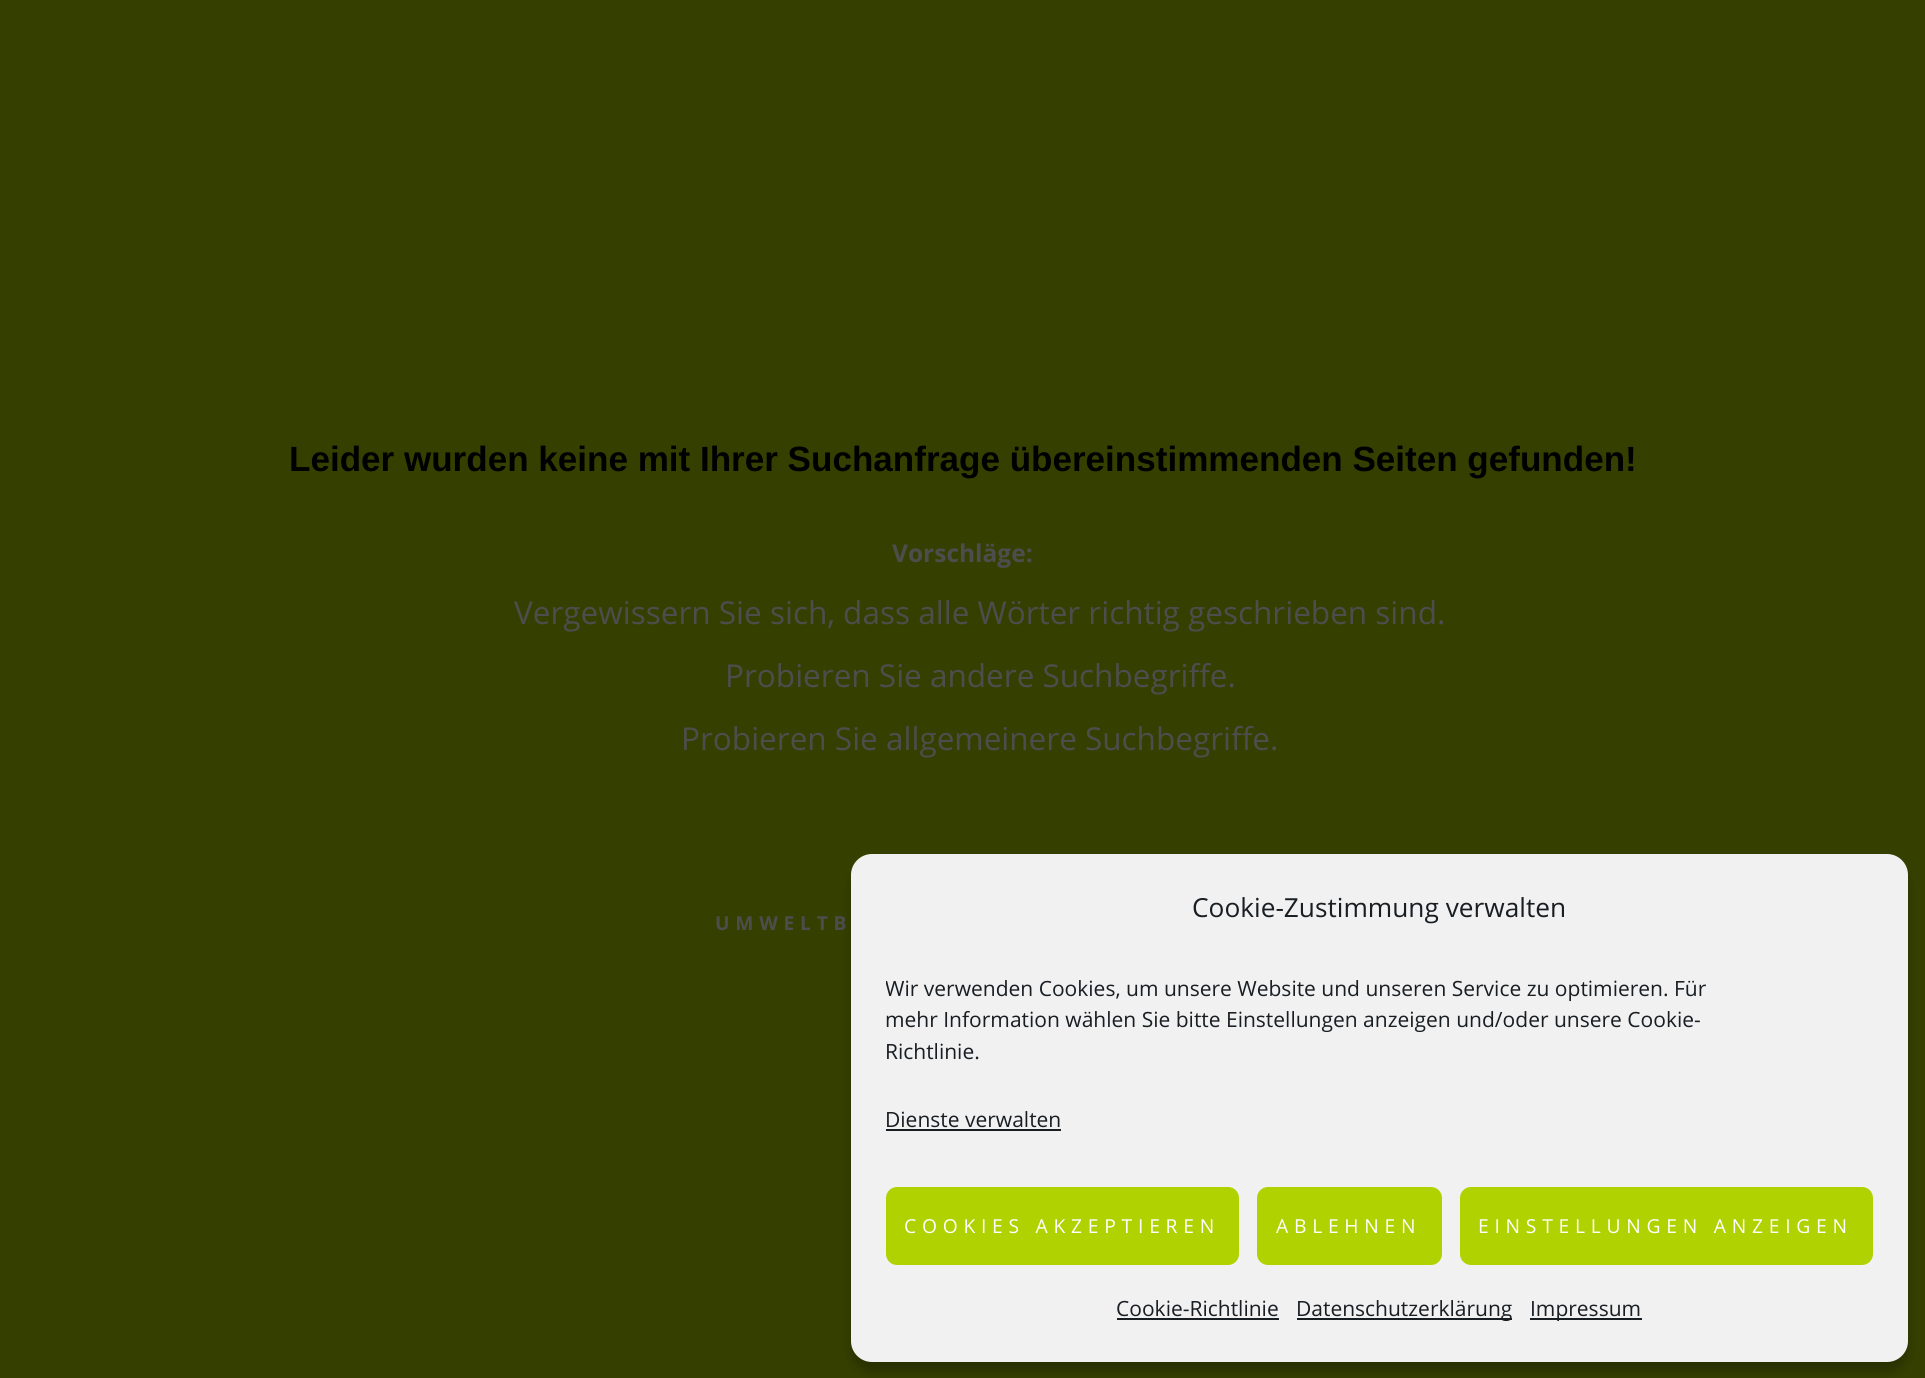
import math
import cairo

surface = cairo.ImageSurface(cairo.FORMAT_RGB24, 1925, 1378)
ctx = cairo.Context(surface)
options = cairo.FontOptions()
options.set_hint_metrics(cairo.HINT_METRICS_OFF)
options.set_hint_style(cairo.HINT_STYLE_NONE)
ctx.set_font_options(options)
ctx.set_miter_limit(4)


def spaced_text(x, y, s, letter, word):
    ctx.move_to(x, y)
    for ch in s:
        ctx.show_text(ch)
        ctx.rel_move_to(letter + word * (ch == ' '), 0)


def round_rect(x, y, w, h, r):
    ctx.new_sub_path()
    for i, (u, v) in enumerate([(x + w - r, y + h - r), (x + r, y + h - r), (x + r, y + r), (x + w - r, y + r)]):
        ctx.arc(u, v, r, i * math.pi / 2, (i + 1) * math.pi / 2)
    ctx.close_path()


def shadow(x, y, w, h, r, blur, alpha):
    ctx.push_group_with_content(cairo.CONTENT_ALPHA)
    ctx.set_operator(cairo.OPERATOR_SOURCE)
    for i in range(15, -16, -2):
        e = blur * i / 6
        if min(w, h) + 2 * e > 0:
            ctx.set_source_rgba(0, 0, 0, alpha * math.erfc((i - 1) / 8.5) / 2)
            round_rect(x - e, y - e, w + 2 * e, h + 2 * e, max(0, min(r + e + blur * .6, min(w, h) / 2 + e)))
            ctx.fill()
    ctx.mask(ctx.pop_group())


ctx.set_source_rgb(0.208, 0.247, 0)
ctx.paint()
ctx.select_font_face("Liberation Sans", cairo.FONT_SLANT_NORMAL, cairo.FONT_WEIGHT_BOLD)
ctx.set_font_size(35.05)
ctx.set_source_rgb(0, 0, 0)
ctx.move_to(289, 471)
ctx.show_text("Leider wurden keine mit Ihrer Suchanfrage übereinstimmenden Seiten gefunden!")
ctx.select_font_face("Open Sans", cairo.FONT_SLANT_NORMAL, cairo.FONT_WEIGHT_BOLD)
ctx.set_font_size(24.5)
ctx.set_source_rgb(0.302, 0.302, 0.302)
ctx.move_to(892, 562)
ctx.show_text("Vorschläge:")
ctx.select_font_face("Open Sans")
ctx.set_font_size(31.5)
ctx.move_to(514, 624)
ctx.show_text("Vergewissern Sie sich, dass alle Wörter richtig geschrieben sind.")
ctx.move_to(725, 687)
ctx.show_text("Probieren Sie andere Suchbegriffe.")
ctx.move_to(681, 750)
ctx.show_text("Probieren Sie allgemeinere Suchbegriffe.")
ctx.select_font_face("Open Sans", cairo.FONT_SLANT_NORMAL, cairo.FONT_WEIGHT_BOLD)
ctx.set_font_size(19.25)
spaced_text(715, 930, "UMWELTB", 5.75, 0)
ctx.set_source_rgb(0, 0, 0)
shadow(851, 865, 1057, 507, 21, 5, 0.23)
ctx.set_source_rgb(0.945, 0.945, 0.945)
round_rect(851, 854, 1057, 508, 21)
ctx.fill()
ctx.select_font_face("Open Sans")
ctx.set_font_size(26.25)
ctx.set_source_rgb(0.098, 0.118, 0.137)
ctx.move_to(1192, 917)
ctx.show_text("Cookie-Zustimmung verwalten")
ctx.save()
ctx.rectangle(886, 973, 987, 103)
ctx.clip()
ctx.set_font_size(21)
ctx.move_to(885, 996)
ctx.show_text("Wir verwenden Cookies, um unsere Website und unseren Service zu optimieren. Für")
ctx.restore()
ctx.set_font_size(21)
ctx.move_to(885, 1027)
ctx.show_text("mehr Information wählen Sie bitte Einstellungen anzeigen und/oder unsere Cookie-")
ctx.move_to(885, 1059)
ctx.show_text("Richtlinie.")
ctx.move_to(885, 1127)
ctx.show_text("Dienste verwalten")
ctx.rectangle(886, 1129, 175, 2)
ctx.fill()
ctx.set_source_rgb(0.686, 0.824, 0)
round_rect(887, 1188, 351, 76, 10)
ctx.fill_preserve()
ctx.stroke()
ctx.set_font_size(19.25)
ctx.set_source_rgb(1, 1, 1)
spaced_text(904, 1233, "COOKIES AKZEPTIEREN", 5.75, 0)
ctx.set_source_rgb(0.686, 0.824, 0)
round_rect(1258, 1188, 183, 76, 10)
ctx.fill_preserve()
ctx.stroke()
ctx.set_source_rgb(1, 1, 1)
spaced_text(1276, 1233, "ABLEHNEN", 5.75, 0)
ctx.set_source_rgb(0.686, 0.824, 0)
round_rect(1461, 1188, 411, 76, 10)
ctx.fill_preserve()
ctx.stroke()
ctx.set_source_rgb(1, 1, 1)
spaced_text(1478, 1233, "EINSTELLUNGEN ANZEIGEN", 5.75, 0)
ctx.set_font_size(21)
ctx.set_source_rgb(0.098, 0.118, 0.137)
ctx.move_to(1116, 1316)
ctx.show_text("Cookie-Richtlinie")
ctx.rectangle(1117, 1318, 162, 2)
ctx.fill()
ctx.rectangle(1297, 1318, 215, 2)
ctx.fill()
ctx.move_to(1296, 1316)
ctx.show_text("Datenschutzerklärung")
ctx.rectangle(1530, 1318, 112, 2)
ctx.fill()
ctx.move_to(1530, 1316)
ctx.show_text("Impressum")
surface.write_to_png("page.png")
